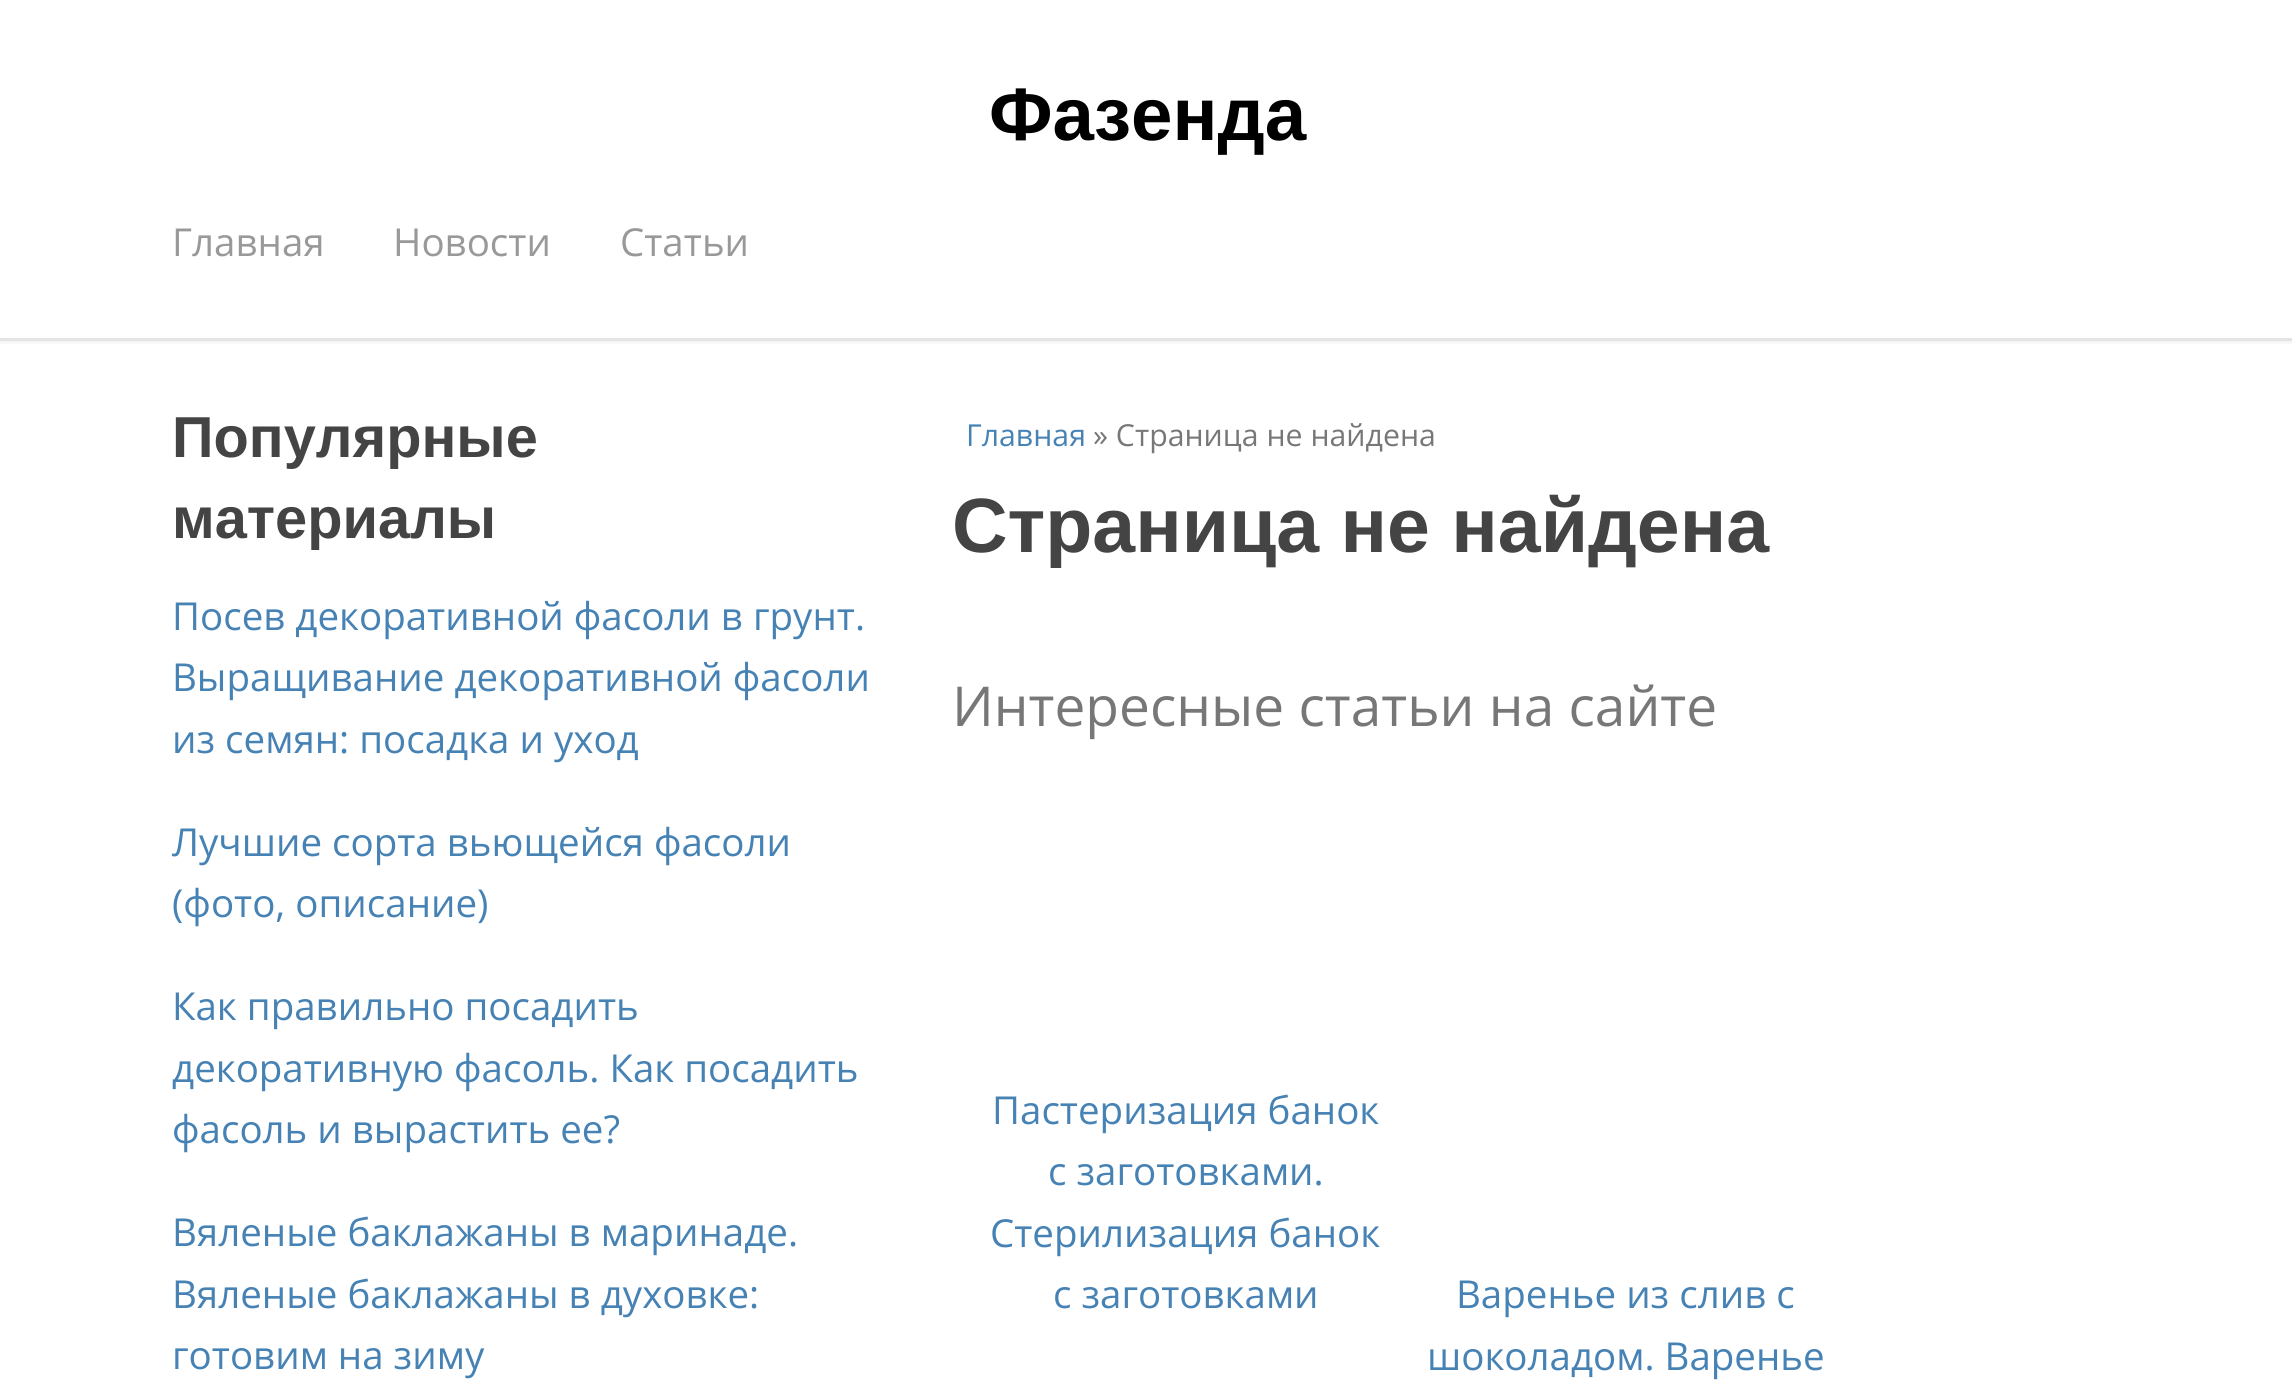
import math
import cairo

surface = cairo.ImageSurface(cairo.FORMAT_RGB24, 2292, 1391)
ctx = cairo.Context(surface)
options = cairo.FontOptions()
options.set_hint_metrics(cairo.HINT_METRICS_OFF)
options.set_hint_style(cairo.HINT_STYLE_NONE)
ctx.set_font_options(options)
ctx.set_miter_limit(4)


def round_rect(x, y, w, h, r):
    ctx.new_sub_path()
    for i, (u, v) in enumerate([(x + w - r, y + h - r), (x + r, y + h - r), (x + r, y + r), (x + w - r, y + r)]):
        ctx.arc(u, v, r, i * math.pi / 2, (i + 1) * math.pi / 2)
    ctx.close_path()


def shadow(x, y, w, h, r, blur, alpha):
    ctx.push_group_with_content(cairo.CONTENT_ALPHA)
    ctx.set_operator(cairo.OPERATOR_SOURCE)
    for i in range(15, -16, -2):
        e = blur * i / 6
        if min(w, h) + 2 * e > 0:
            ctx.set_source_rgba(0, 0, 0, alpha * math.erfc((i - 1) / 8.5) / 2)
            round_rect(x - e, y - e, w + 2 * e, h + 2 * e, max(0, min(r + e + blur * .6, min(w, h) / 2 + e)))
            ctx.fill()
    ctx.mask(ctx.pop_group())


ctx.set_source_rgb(1, 1, 1)
ctx.paint()
ctx.save()
ctx.rectangle(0, 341, 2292, 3)
ctx.clip()
ctx.set_source_rgb(0, 0, 0)
shadow(0, 0, 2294, 341, 0, 4, 0.1)
ctx.restore()
ctx.set_source_rgb(0.894, 0.894, 0.894)
ctx.rectangle(0, 338, 2292, 3)
ctx.fill()
ctx.select_font_face("Liberation Sans", cairo.FONT_SLANT_NORMAL, cairo.FONT_WEIGHT_BOLD)
ctx.set_font_size(74.5)
ctx.set_source_rgb(0, 0, 0)
ctx.move_to(989, 140)
ctx.show_text("Фазенда")
ctx.select_font_face("Open Sans")
ctx.set_font_size(38.5)
ctx.set_source_rgb(0.6, 0.6, 0.6)
ctx.move_to(172, 256)
ctx.show_text("Главная")
ctx.move_to(393, 256)
ctx.show_text("Новости")
ctx.move_to(620, 256)
ctx.show_text("Статьи")
ctx.select_font_face("Liberation Sans", cairo.FONT_SLANT_NORMAL, cairo.FONT_WEIGHT_BOLD)
ctx.set_font_size(57.75)
ctx.set_source_rgb(0.267, 0.267, 0.267)
ctx.move_to(172, 457)
ctx.show_text("Популярные")
ctx.move_to(172, 538)
ctx.show_text("материалы")
ctx.select_font_face("Open Sans")
ctx.set_font_size(38.5)
ctx.set_source_rgb(0.275, 0.51, 0.706)
ctx.move_to(172, 630)
ctx.show_text("Посев декоративной фасоли в грунт.")
ctx.move_to(172, 691)
ctx.show_text("Выращивание декоративной фасоли")
ctx.move_to(172, 753)
ctx.show_text("из семян: посадка и уход")
ctx.move_to(172, 856)
ctx.show_text("Лучшие сорта вьющейся фасоли")
ctx.move_to(172, 917)
ctx.show_text("(фото, описание)")
ctx.move_to(172, 1020)
ctx.show_text("Как правильно посадить")
ctx.move_to(172, 1082)
ctx.show_text("декоративную фасоль. Как посадить")
ctx.move_to(172, 1143)
ctx.show_text("фасоль и вырастить ее?")
ctx.move_to(172, 1246)
ctx.show_text("Вяленые баклажаны в маринаде.")
ctx.move_to(172, 1308)
ctx.show_text("Вяленые баклажаны в духовке:")
ctx.move_to(172, 1369)
ctx.show_text("готовим на зиму")
ctx.set_font_size(30.25)
ctx.move_to(966, 446)
ctx.show_text("Главная")
ctx.set_source_rgb(0.467, 0.467, 0.467)
ctx.move_to(1093, 446)
ctx.show_text("» Страница не найдена")
ctx.select_font_face("Liberation Sans", cairo.FONT_SLANT_NORMAL, cairo.FONT_WEIGHT_BOLD)
ctx.set_font_size(77)
ctx.set_source_rgb(0.267, 0.267, 0.267)
ctx.move_to(952, 552)
ctx.show_text("Страница не найдена")
ctx.select_font_face("Open Sans")
ctx.set_font_size(55)
ctx.set_source_rgb(0.467, 0.467, 0.467)
ctx.move_to(952, 726)
ctx.show_text("Интересные статьи на сайте")
ctx.set_font_size(38.5)
ctx.set_source_rgb(0.275, 0.51, 0.706)
ctx.move_to(992, 1124)
ctx.show_text("Пастеризация банок")
ctx.move_to(1048, 1185)
ctx.show_text("с заготовками.")
ctx.move_to(990, 1247)
ctx.show_text("Стерилизация банок")
ctx.move_to(1053, 1308)
ctx.show_text("с заготовками")
ctx.move_to(1456, 1308)
ctx.show_text("Варенье из слив с")
ctx.move_to(1427, 1370)
ctx.show_text("шоколадом. Варенье")
surface.write_to_png("page.png")
